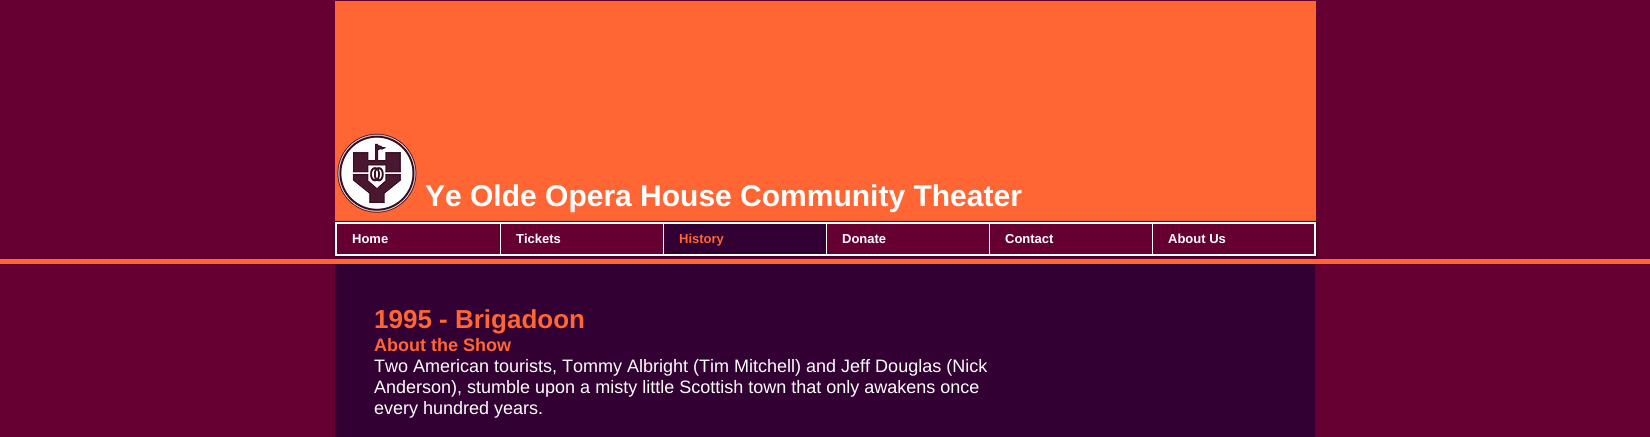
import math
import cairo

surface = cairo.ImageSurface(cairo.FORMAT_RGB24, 1650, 437)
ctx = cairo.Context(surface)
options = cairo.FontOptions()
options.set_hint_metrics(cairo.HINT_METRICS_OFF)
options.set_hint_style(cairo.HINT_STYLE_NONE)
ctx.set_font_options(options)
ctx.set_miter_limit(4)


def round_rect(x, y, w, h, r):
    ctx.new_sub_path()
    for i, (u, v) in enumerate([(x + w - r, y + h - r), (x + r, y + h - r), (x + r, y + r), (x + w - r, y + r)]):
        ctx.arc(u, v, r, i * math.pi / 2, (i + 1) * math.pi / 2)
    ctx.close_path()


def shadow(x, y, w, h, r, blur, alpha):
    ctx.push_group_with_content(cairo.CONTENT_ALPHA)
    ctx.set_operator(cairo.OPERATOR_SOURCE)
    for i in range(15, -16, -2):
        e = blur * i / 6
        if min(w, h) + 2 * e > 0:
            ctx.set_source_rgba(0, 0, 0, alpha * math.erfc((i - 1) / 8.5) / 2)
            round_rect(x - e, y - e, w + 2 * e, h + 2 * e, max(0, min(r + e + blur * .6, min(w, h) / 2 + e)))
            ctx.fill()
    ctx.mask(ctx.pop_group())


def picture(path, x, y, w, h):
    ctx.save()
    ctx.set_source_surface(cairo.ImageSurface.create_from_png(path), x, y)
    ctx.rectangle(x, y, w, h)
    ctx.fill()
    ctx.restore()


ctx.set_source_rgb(0.4, 0, 0.2)
ctx.paint()
ctx.set_source_rgb(1, 0.4, 0.2)
ctx.rectangle(335, 1, 981, 220)
ctx.fill()
picture("img1.png", 337, 133, 80, 80)
ctx.select_font_face("Liberation Sans", cairo.FONT_SLANT_NORMAL, cairo.FONT_WEIGHT_BOLD)
ctx.set_font_size(30)
ctx.set_source_rgb(1, 1, 1)
ctx.move_to(425, 206)
ctx.show_text("Ye Olde Opera House Community Theater")
ctx.save()
ctx.set_fill_rule(cairo.FILL_RULE_EVEN_ODD)
ctx.new_path()
ctx.move_to(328, 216)
ctx.line_to(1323, 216)
ctx.line_to(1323, 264)
ctx.line_to(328, 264)
ctx.close_path()
ctx.move_to(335, 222)
ctx.line_to(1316, 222)
ctx.line_to(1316, 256)
ctx.line_to(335, 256)
ctx.close_path()
ctx.clip()
ctx.set_source_rgb(0, 0, 0)
shadow(335, 223, 981, 34, 0, 2, 0.6)
ctx.restore()
ctx.rectangle(336, 223, 979, 32)
ctx.stroke()
ctx.set_font_size(13)
ctx.move_to(352, 243)
ctx.show_text("Home")
ctx.rectangle(500, 224, 1, 30)
ctx.fill()
ctx.move_to(516, 243)
ctx.show_text("Tickets")
ctx.set_source_rgb(0.2, 0, 0.2)
ctx.rectangle(664, 224, 162, 30)
ctx.fill()
ctx.set_source_rgb(1, 1, 1)
ctx.rectangle(663, 224, 1, 30)
ctx.fill()
ctx.set_source_rgb(1, 0.4, 0.2)
ctx.move_to(679, 243)
ctx.show_text("History")
ctx.set_source_rgb(1, 1, 1)
ctx.rectangle(826, 224, 1, 30)
ctx.fill()
ctx.move_to(842, 243)
ctx.show_text("Donate")
ctx.rectangle(989, 224, 1, 30)
ctx.fill()
ctx.move_to(1005, 243)
ctx.show_text("Contact")
ctx.rectangle(1152, 224, 1, 30)
ctx.fill()
ctx.move_to(1168, 243)
ctx.show_text("About Us")
ctx.set_source_rgb(1, 0.4, 0.2)
ctx.rectangle(0, 259, 1650, 5)
ctx.fill()
ctx.set_source_rgb(0.2, 0, 0.2)
ctx.rectangle(335, 264, 980, 173)
ctx.fill()
ctx.set_font_size(26)
ctx.set_source_rgb(1, 0.4, 0.2)
ctx.move_to(374, 328)
ctx.show_text("1995 - Brigadoon")
ctx.set_font_size(18)
ctx.move_to(374, 351)
ctx.show_text("About the Show")
ctx.select_font_face("Liberation Sans")
ctx.set_source_rgb(1, 1, 1)
ctx.move_to(374, 372)
ctx.show_text("Two American tourists, Tommy Albright (Tim Mitchell) and Jeff Douglas (Nick")
ctx.move_to(374, 393)
ctx.show_text("Anderson), stumble upon a misty little Scottish town that only awakens once")
ctx.move_to(374, 414)
ctx.show_text("every hundred years.")
surface.write_to_png("page.png")
